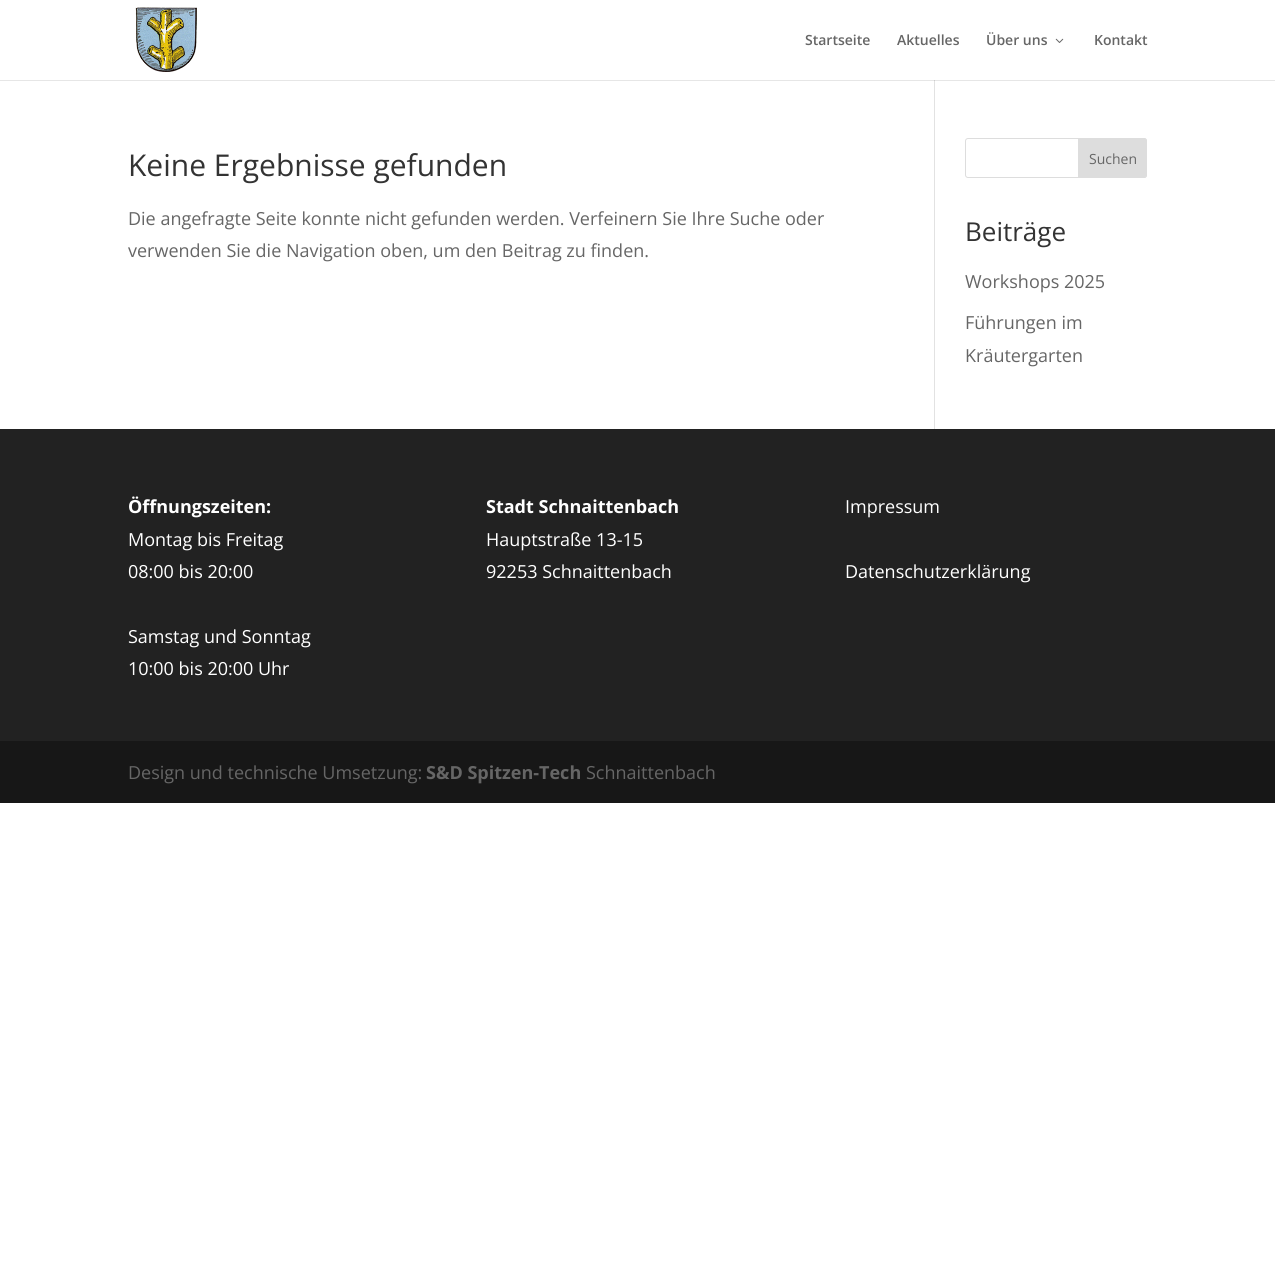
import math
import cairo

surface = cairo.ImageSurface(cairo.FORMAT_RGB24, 1275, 1275)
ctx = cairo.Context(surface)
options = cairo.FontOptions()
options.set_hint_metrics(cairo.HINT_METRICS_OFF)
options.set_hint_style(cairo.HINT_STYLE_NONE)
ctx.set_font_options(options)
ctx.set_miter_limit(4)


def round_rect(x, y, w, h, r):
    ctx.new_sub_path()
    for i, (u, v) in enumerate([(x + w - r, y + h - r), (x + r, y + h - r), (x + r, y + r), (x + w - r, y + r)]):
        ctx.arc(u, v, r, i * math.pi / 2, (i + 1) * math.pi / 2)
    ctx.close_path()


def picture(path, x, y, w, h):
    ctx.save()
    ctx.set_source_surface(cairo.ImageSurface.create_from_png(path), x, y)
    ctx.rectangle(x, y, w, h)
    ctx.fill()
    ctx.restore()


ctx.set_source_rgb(1, 1, 1)
ctx.paint()
ctx.set_source_rgb(0.902, 0.902, 0.902)
ctx.rectangle(0, 80, 1275, 1)
ctx.fill()
picture("img1.png", 135, 7, 62, 65)
ctx.select_font_face("Open Sans SemiBold")
ctx.set_font_size(14)
ctx.set_source_rgb(0.4, 0.4, 0.4)
ctx.move_to(805, 45)
ctx.show_text("Startseite")
ctx.move_to(897, 45)
ctx.show_text("Aktuelles")
ctx.move_to(986, 45)
ctx.show_text("Über uns")
picture("img2.png", 1055, 38, 9, 5)
ctx.move_to(1094, 45)
ctx.show_text("Kontakt")
ctx.set_source_rgb(0.886, 0.886, 0.886)
ctx.rectangle(934, 80, 1, 349)
ctx.fill()
ctx.set_source_rgb(0.796, 0.796, 0.796)
ctx.rectangle(934, 80, 1, 1)
ctx.fill()
ctx.select_font_face("Open Sans")
ctx.set_font_size(30)
ctx.set_source_rgb(0.2, 0.2, 0.2)
ctx.move_to(128, 176)
ctx.show_text("Keine Ergebnisse gefunden")
ctx.set_font_size(18)
ctx.set_source_rgb(0.4, 0.4, 0.4)
ctx.move_to(128, 225)
ctx.show_text("Die angefragte Seite konnte nicht gefunden werden. Verfeinern Sie Ihre Suche oder")
ctx.move_to(128, 257)
ctx.show_text("verwenden Sie die Navigation oben, um den Beitrag zu finden.")
round_rect(965.5, 138.5, 181, 39, 2.5)
ctx.set_source_rgb(0.867, 0.867, 0.867)
ctx.set_line_width(1)
ctx.stroke()
ctx.new_path()
ctx.move_to(1078.5, 138.5)
ctx.line_to(1144, 138.5)
ctx.curve_to(1145.5, 138.5, 1146.5, 139.5, 1146.5, 141)
ctx.line_to(1146.5, 175)
ctx.curve_to(1146.5, 176.5, 1145.5, 177.5, 1144, 177.5)
ctx.line_to(1078.5, 177.5)
ctx.close_path()
ctx.fill_preserve()
ctx.stroke()
ctx.set_font_size(14)
ctx.set_source_rgb(0.4, 0.4, 0.4)
ctx.move_to(1089, 164)
ctx.show_text("Suchen")
ctx.set_font_size(26)
ctx.set_source_rgb(0.2, 0.2, 0.2)
ctx.move_to(965, 241)
ctx.show_text("Beiträge")
ctx.set_font_size(18)
ctx.set_source_rgb(0.4, 0.4, 0.4)
ctx.move_to(965, 288)
ctx.show_text("Workshops 2025")
ctx.move_to(965, 329)
ctx.show_text("Führungen im")
ctx.move_to(965, 362)
ctx.show_text("Kräutergarten")
ctx.set_source_rgb(0.133, 0.133, 0.133)
ctx.rectangle(0, 429, 1275, 312)
ctx.fill()
ctx.select_font_face("Open Sans", cairo.FONT_SLANT_NORMAL, cairo.FONT_WEIGHT_BOLD)
ctx.set_source_rgb(1, 1, 1)
ctx.move_to(128, 513)
ctx.show_text("Öffnungszeiten:")
ctx.select_font_face("Open Sans")
ctx.move_to(128, 546)
ctx.show_text("Montag bis Freitag")
ctx.move_to(128, 578)
ctx.show_text("08:00 bis 20:00")
ctx.move_to(128, 643)
ctx.show_text("Samstag und Sonntag")
ctx.move_to(128, 675)
ctx.show_text("10:00 bis 20:00 Uhr")
ctx.select_font_face("Open Sans", cairo.FONT_SLANT_NORMAL, cairo.FONT_WEIGHT_BOLD)
ctx.move_to(486, 513)
ctx.show_text("Stadt Schnaittenbach")
ctx.select_font_face("Open Sans")
ctx.move_to(486, 546)
ctx.show_text("Hauptstraße 13-15")
ctx.move_to(486, 578)
ctx.show_text("92253 Schnaittenbach")
ctx.move_to(845, 513)
ctx.show_text("Impressum")
ctx.move_to(845, 578)
ctx.show_text("Datenschutzerklärung")
ctx.set_source_rgb(0.09, 0.09, 0.09)
ctx.rectangle(0, 741, 1275, 62)
ctx.fill()
ctx.set_source_rgb(0.4, 0.4, 0.4)
ctx.move_to(128, 779)
ctx.show_text("Design und technische Umsetzung:")
ctx.select_font_face("Open Sans", cairo.FONT_SLANT_NORMAL, cairo.FONT_WEIGHT_BOLD)
ctx.move_to(426, 779)
ctx.show_text("S&D Spitzen-Tech")
ctx.select_font_face("Open Sans")
ctx.move_to(586, 779)
ctx.show_text("Schnaittenbach")
surface.write_to_png("page.png")
